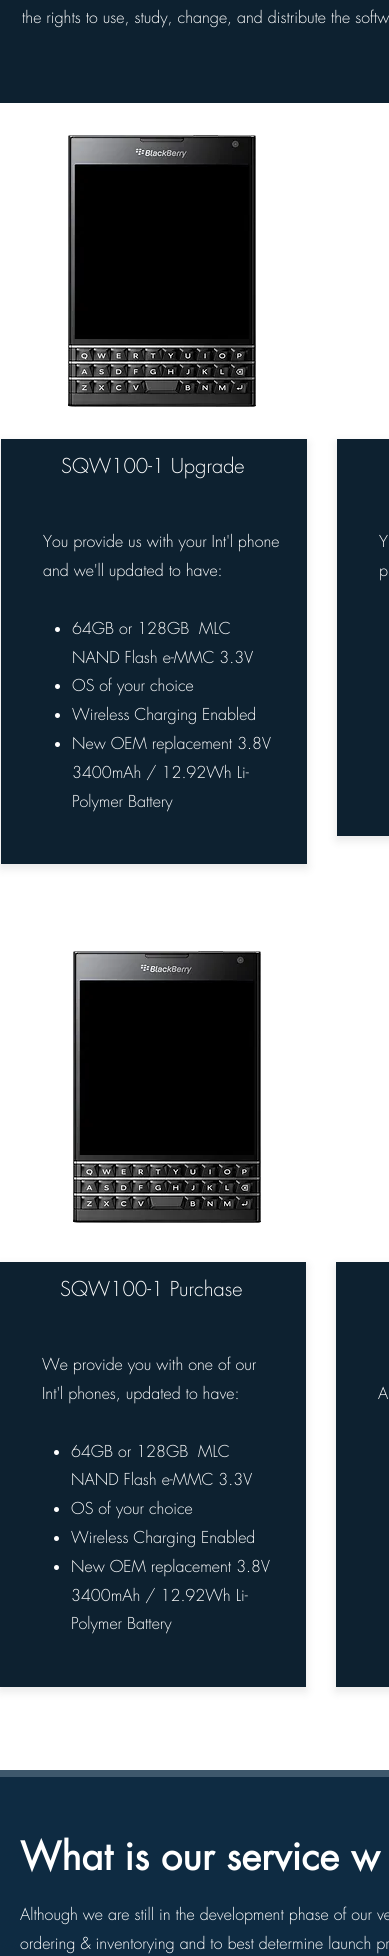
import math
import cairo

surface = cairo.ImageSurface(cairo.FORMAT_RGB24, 389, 1956)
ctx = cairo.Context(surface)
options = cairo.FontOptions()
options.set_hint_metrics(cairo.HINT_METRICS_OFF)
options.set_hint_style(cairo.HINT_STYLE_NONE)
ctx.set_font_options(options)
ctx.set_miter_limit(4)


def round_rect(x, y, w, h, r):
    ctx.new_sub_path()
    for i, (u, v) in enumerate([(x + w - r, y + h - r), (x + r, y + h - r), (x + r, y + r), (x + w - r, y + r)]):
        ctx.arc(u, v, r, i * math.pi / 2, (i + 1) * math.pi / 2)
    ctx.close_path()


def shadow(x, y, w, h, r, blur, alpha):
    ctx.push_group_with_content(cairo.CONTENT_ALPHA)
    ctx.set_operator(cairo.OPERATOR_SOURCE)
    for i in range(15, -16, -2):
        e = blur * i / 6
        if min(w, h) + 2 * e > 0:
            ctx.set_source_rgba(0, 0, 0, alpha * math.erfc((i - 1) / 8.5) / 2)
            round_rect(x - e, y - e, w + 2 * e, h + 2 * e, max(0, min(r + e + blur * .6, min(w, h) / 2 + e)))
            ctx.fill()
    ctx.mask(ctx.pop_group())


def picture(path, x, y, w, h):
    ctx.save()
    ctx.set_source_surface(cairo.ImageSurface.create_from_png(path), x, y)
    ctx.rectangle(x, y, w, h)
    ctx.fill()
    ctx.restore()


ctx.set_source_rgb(0.051, 0.129, 0.188)
ctx.paint()
ctx.select_font_face("futura Light")
ctx.set_font_size(16)
ctx.set_source_rgb(1, 1, 1)
ctx.move_to(22, 23)
ctx.show_text("the rights to use, study, change, and distribute the softw")
ctx.rectangle(0, 103, 389, 1667)
ctx.fill()
ctx.set_source_rgb(0.243, 0.345, 0.424)
ctx.rectangle(0, 1770, 389, 7)
ctx.fill()
picture("img1.png", 68, 135, 188, 272)
ctx.set_source_rgb(0, 0, 0)
shadow(1, 443, 306, 425, 0, 5, 0.1)
ctx.set_source_rgb(0.051, 0.129, 0.188)
ctx.rectangle(1, 439, 306, 425)
ctx.fill()
ctx.set_font_size(20)
ctx.set_source_rgb(1, 1, 1)
ctx.move_to(61, 473)
ctx.show_text("SQW100-1 Upgrade")
ctx.set_font_size(16)
ctx.move_to(43, 547)
ctx.show_text("You provide us with your Int'l phone")
ctx.move_to(43, 576)
ctx.show_text("and we'll updated to have:")
ctx.new_path()
ctx.arc(57.5, 629.5, 2.5, 0, 2 * math.pi)
ctx.fill()
ctx.move_to(72, 634)
ctx.show_text("64GB or 128GB  MLC")
ctx.move_to(72, 663)
ctx.show_text("NAND Flash e-MMC 3.3V")
ctx.new_path()
ctx.arc(57.5, 686.5, 2.5, 0, 2 * math.pi)
ctx.fill()
ctx.move_to(72, 691)
ctx.show_text("OS of your choice")
ctx.new_path()
ctx.arc(57.5, 715.5, 2.5, 0, 2 * math.pi)
ctx.fill()
ctx.move_to(72, 720)
ctx.show_text("Wireless Charging Enabled")
ctx.new_path()
ctx.arc(57.5, 744.5, 2.5, 0, 2 * math.pi)
ctx.fill()
ctx.move_to(72, 749)
ctx.show_text("New OEM replacement 3.8V")
ctx.move_to(72, 778)
ctx.show_text("3400mAh / 12.92Wh Li-")
ctx.move_to(72, 807)
ctx.show_text("Polymer Battery")
ctx.set_source_rgb(0, 0, 0)
shadow(337, 443, 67, 397, 0, 5, 0.1)
ctx.set_source_rgb(0.051, 0.129, 0.188)
ctx.rectangle(337, 439, 52, 397)
ctx.fill()
ctx.set_source_rgb(1, 1, 1)
ctx.move_to(379, 547)
ctx.show_text("Y")
ctx.move_to(379, 576)
ctx.show_text("p")
picture("img1.png", 73, 951, 188, 272)
ctx.set_source_rgb(0, 0, 0)
shadow(0, 1266, 306, 425, 0, 5, 0.1)
ctx.set_source_rgb(0.051, 0.129, 0.188)
ctx.rectangle(0, 1262, 306, 425)
ctx.fill()
ctx.set_font_size(20)
ctx.set_source_rgb(1, 1, 1)
ctx.move_to(60, 1296)
ctx.show_text("SQW100-1 Purchase")
ctx.set_font_size(16)
ctx.move_to(42, 1370)
ctx.show_text("We provide you with one of our")
ctx.move_to(42, 1399)
ctx.show_text("Int'l phones, updated to have:")
ctx.new_path()
ctx.arc(56.5, 1452.5, 2.5, 0, 2 * math.pi)
ctx.fill()
ctx.move_to(71, 1457)
ctx.show_text("64GB or 128GB  MLC")
ctx.move_to(71, 1485)
ctx.show_text("NAND Flash e-MMC 3.3V")
ctx.new_path()
ctx.arc(56.5, 1509.5, 2.5, 0, 2 * math.pi)
ctx.fill()
ctx.move_to(71, 1514)
ctx.show_text("OS of your choice")
ctx.new_path()
ctx.arc(56.5, 1538.5, 2.5, 0, 2 * math.pi)
ctx.fill()
ctx.move_to(71, 1543)
ctx.show_text("Wireless Charging Enabled")
ctx.new_path()
ctx.arc(56.5, 1567.5, 2.5, 0, 2 * math.pi)
ctx.fill()
ctx.move_to(71, 1572)
ctx.show_text("New OEM replacement 3.8V")
ctx.move_to(71, 1601)
ctx.show_text("3400mAh / 12.92Wh Li-")
ctx.move_to(71, 1629)
ctx.show_text("Polymer Battery")
ctx.set_source_rgb(0, 0, 0)
shadow(336, 1266, 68, 425, 0, 5, 0.1)
ctx.set_source_rgb(0.051, 0.129, 0.188)
ctx.rectangle(336, 1262, 53, 425)
ctx.fill()
ctx.set_source_rgb(1, 1, 1)
ctx.move_to(378, 1399)
ctx.show_text("A")
ctx.set_source_rgb(0.055, 0.169, 0.259)
ctx.rectangle(0, 1777, 389, 179)
ctx.fill()
ctx.select_font_face("futura", cairo.FONT_SLANT_NORMAL, cairo.FONT_WEIGHT_BOLD)
ctx.set_font_size(38)
ctx.set_source_rgb(1, 1, 1)
ctx.move_to(20, 1870)
ctx.show_text("What is our service w")
ctx.select_font_face("futura Light")
ctx.set_font_size(16)
ctx.move_to(20, 1920)
ctx.show_text("Although we are still in the development phase of our ve")
ctx.move_to(20, 1949)
ctx.show_text("ordering & inventorying and to best determine launch pr")
surface.write_to_png("page.png")
